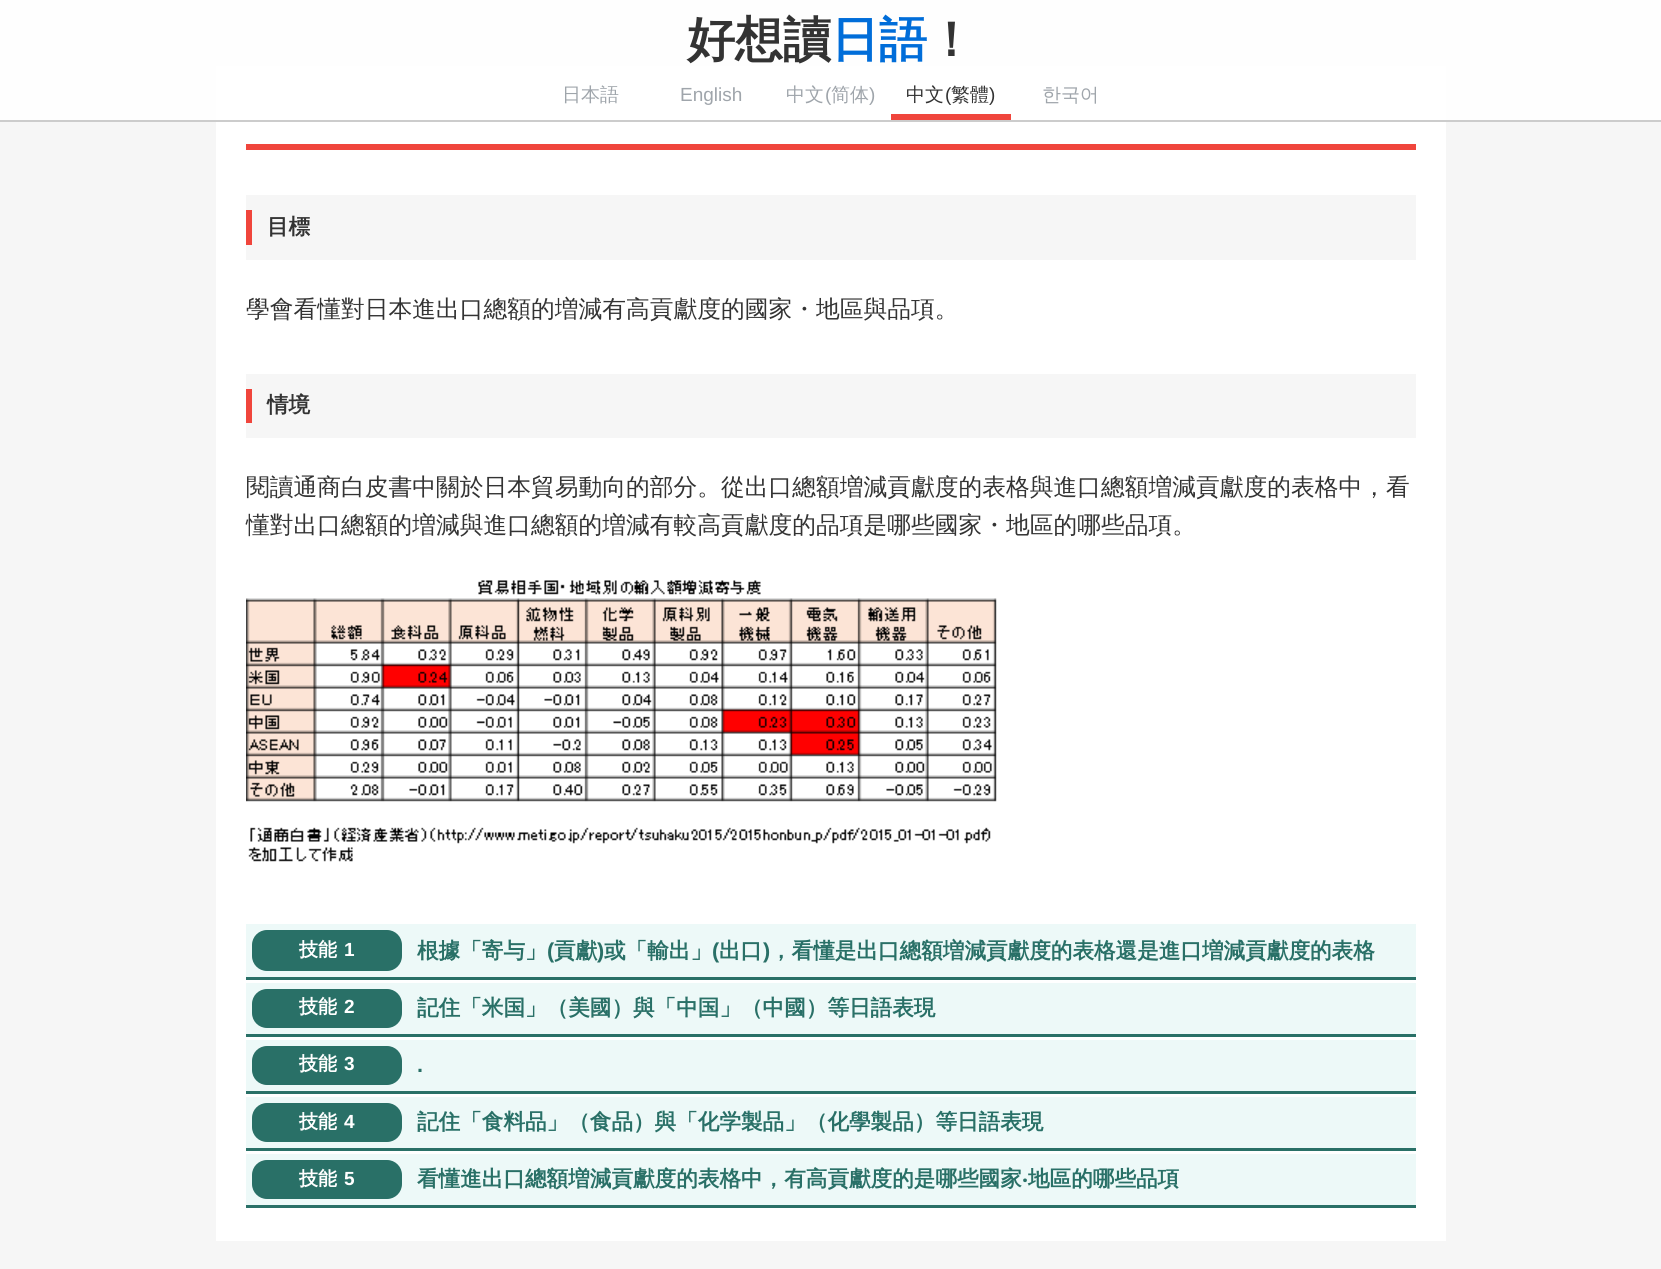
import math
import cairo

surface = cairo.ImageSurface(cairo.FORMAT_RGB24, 1661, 1269)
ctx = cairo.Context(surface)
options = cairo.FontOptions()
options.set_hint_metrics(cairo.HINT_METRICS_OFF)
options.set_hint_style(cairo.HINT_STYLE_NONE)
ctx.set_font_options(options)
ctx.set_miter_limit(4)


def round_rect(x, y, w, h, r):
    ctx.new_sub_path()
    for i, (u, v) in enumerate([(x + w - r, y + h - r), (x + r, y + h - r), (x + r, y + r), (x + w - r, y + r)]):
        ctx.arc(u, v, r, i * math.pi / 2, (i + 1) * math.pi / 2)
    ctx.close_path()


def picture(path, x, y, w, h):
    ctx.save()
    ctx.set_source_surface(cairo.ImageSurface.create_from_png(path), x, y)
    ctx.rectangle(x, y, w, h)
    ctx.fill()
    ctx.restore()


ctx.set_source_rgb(0.961, 0.961, 0.961)
ctx.paint()
ctx.set_source_rgb(1, 1, 1)
ctx.rectangle(216, 66, 1230, 1175)
ctx.fill()
ctx.set_source_rgba(1, 1, 1, 0.9)
ctx.rectangle(0, 0, 1661, 120)
ctx.fill()
ctx.set_source_rgb(0.8, 0.8, 0.8)
ctx.rectangle(0, 120, 1661, 2)
ctx.fill()
ctx.select_font_face("WenQuanYi Zen Hei", cairo.FONT_SLANT_NORMAL, cairo.FONT_WEIGHT_BOLD)
ctx.set_font_size(48)
ctx.set_source_rgb(0.2, 0.2, 0.2)
ctx.move_to(687, 56)
ctx.show_text("好想讀")
ctx.set_source_rgb(0, 0.427, 0.851)
ctx.move_to(831, 56)
ctx.show_text("日語")
ctx.set_source_rgb(0.2, 0.2, 0.2)
ctx.move_to(927, 56)
ctx.show_text("！")
ctx.select_font_face("WenQuanYi Zen Hei Medium")
ctx.set_font_size(19)
ctx.set_source_rgb(0.624, 0.647, 0.671)
ctx.move_to(562, 101)
ctx.show_text("日本語")
ctx.select_font_face("Liberation Sans")
ctx.move_to(680, 101)
ctx.show_text("English")
ctx.select_font_face("WenQuanYi Zen Hei Medium")
ctx.move_to(786, 101)
ctx.show_text("中文")
ctx.select_font_face("Liberation Sans")
ctx.move_to(825, 101)
ctx.show_text("(")
ctx.select_font_face("WenQuanYi Zen Hei Medium")
ctx.move_to(831, 101)
ctx.show_text("简体")
ctx.select_font_face("Liberation Sans")
ctx.move_to(869, 101)
ctx.show_text(")")
ctx.set_source_rgb(0.941, 0.271, 0.235)
ctx.rectangle(891, 114, 120, 6)
ctx.fill()
ctx.select_font_face("WenQuanYi Zen Hei Medium")
ctx.set_source_rgb(0.2, 0.2, 0.2)
ctx.move_to(906, 101)
ctx.show_text("中文")
ctx.select_font_face("Liberation Sans")
ctx.move_to(945, 101)
ctx.show_text("(")
ctx.select_font_face("WenQuanYi Zen Hei Medium")
ctx.move_to(951, 101)
ctx.show_text("繁體")
ctx.select_font_face("Liberation Sans")
ctx.move_to(989, 101)
ctx.show_text(")")
ctx.select_font_face("WenQuanYi Zen Hei Medium")
ctx.set_source_rgb(0.624, 0.647, 0.671)
ctx.move_to(1042, 101)
ctx.show_text("한국어")
ctx.set_source_rgb(0.941, 0.271, 0.235)
ctx.rectangle(246, 144, 1170, 6)
ctx.fill()
ctx.set_source_rgb(0.961, 0.961, 0.961)
ctx.rectangle(246, 195, 1170, 65)
ctx.fill()
ctx.set_source_rgb(0.941, 0.271, 0.235)
ctx.rectangle(246, 210, 6, 35)
ctx.fill()
ctx.select_font_face("WenQuanYi Zen Hei", cairo.FONT_SLANT_NORMAL, cairo.FONT_WEIGHT_BOLD)
ctx.set_font_size(21.6)
ctx.set_source_rgb(0.2, 0.2, 0.2)
ctx.move_to(267, 234)
ctx.show_text("目標")
ctx.select_font_face("WenQuanYi Zen Hei Medium")
ctx.set_font_size(23.75)
ctx.move_to(246, 317)
ctx.show_text("學會看懂對日本進出口總額的増減有高貢獻度的國家・地區與品項。")
ctx.set_source_rgb(0.961, 0.961, 0.961)
ctx.rectangle(246, 374, 1170, 64)
ctx.fill()
ctx.set_source_rgb(0.941, 0.271, 0.235)
ctx.rectangle(246, 389, 6, 34)
ctx.fill()
ctx.select_font_face("WenQuanYi Zen Hei", cairo.FONT_SLANT_NORMAL, cairo.FONT_WEIGHT_BOLD)
ctx.set_font_size(21.6)
ctx.set_source_rgb(0.2, 0.2, 0.2)
ctx.move_to(267, 412)
ctx.show_text("情境")
ctx.select_font_face("WenQuanYi Zen Hei Medium")
ctx.set_font_size(23.75)
ctx.move_to(246, 495)
ctx.show_text("閱讀通商白皮書中關於日本貿易動向的部分。從出口總額増減貢獻度的表格與進口總額増減貢獻度的表格中，看")
ctx.move_to(246, 533)
ctx.show_text("懂對出口總額的増減與進口總額的増減有較高貢獻度的品項是哪些國家・地區的哪些品項。")
picture("img1.png", 246, 580, 751, 282)
ctx.set_source_rgb(0.929, 0.973, 0.969)
ctx.rectangle(246, 924, 1170, 53)
ctx.fill()
ctx.set_source_rgb(0.161, 0.439, 0.404)
ctx.rectangle(246, 977, 1170, 3)
ctx.fill()
round_rect(252, 930, 150, 41, 15)
ctx.fill()
ctx.select_font_face("WenQuanYi Zen Hei", cairo.FONT_SLANT_NORMAL, cairo.FONT_WEIGHT_BOLD)
ctx.set_font_size(19)
ctx.set_source_rgb(1, 1, 1)
ctx.move_to(299, 956)
ctx.show_text("技能")
ctx.select_font_face("Liberation Sans", cairo.FONT_SLANT_NORMAL, cairo.FONT_WEIGHT_BOLD)
ctx.move_to(344, 956)
ctx.show_text("1")
ctx.select_font_face("WenQuanYi Zen Hei", cairo.FONT_SLANT_NORMAL, cairo.FONT_WEIGHT_BOLD)
ctx.set_font_size(21.6)
ctx.set_source_rgb(0.161, 0.439, 0.404)
ctx.move_to(417, 958)
ctx.show_text("根據「寄与」")
ctx.select_font_face("Liberation Sans", cairo.FONT_SLANT_NORMAL, cairo.FONT_WEIGHT_BOLD)
ctx.move_to(547, 958)
ctx.show_text("(")
ctx.select_font_face("WenQuanYi Zen Hei", cairo.FONT_SLANT_NORMAL, cairo.FONT_WEIGHT_BOLD)
ctx.move_to(554, 958)
ctx.show_text("貢獻")
ctx.select_font_face("Liberation Sans", cairo.FONT_SLANT_NORMAL, cairo.FONT_WEIGHT_BOLD)
ctx.move_to(597, 958)
ctx.show_text(")")
ctx.select_font_face("WenQuanYi Zen Hei", cairo.FONT_SLANT_NORMAL, cairo.FONT_WEIGHT_BOLD)
ctx.move_to(604, 958)
ctx.show_text("或「輸出」")
ctx.select_font_face("Liberation Sans", cairo.FONT_SLANT_NORMAL, cairo.FONT_WEIGHT_BOLD)
ctx.move_to(712, 958)
ctx.show_text("(")
ctx.select_font_face("WenQuanYi Zen Hei", cairo.FONT_SLANT_NORMAL, cairo.FONT_WEIGHT_BOLD)
ctx.move_to(719, 958)
ctx.show_text("出口")
ctx.select_font_face("Liberation Sans", cairo.FONT_SLANT_NORMAL, cairo.FONT_WEIGHT_BOLD)
ctx.move_to(763, 958)
ctx.show_text(")")
ctx.select_font_face("WenQuanYi Zen Hei", cairo.FONT_SLANT_NORMAL, cairo.FONT_WEIGHT_BOLD)
ctx.move_to(770, 958)
ctx.show_text("，看懂是出口總額増減貢獻度的表格還是進口増減貢獻度的表格")
ctx.set_source_rgb(0.929, 0.973, 0.969)
ctx.rectangle(246, 983, 1170, 51)
ctx.fill()
ctx.set_source_rgb(0.161, 0.439, 0.404)
ctx.rectangle(246, 1034, 1170, 3)
ctx.fill()
round_rect(252, 989, 150, 39, 15)
ctx.fill()
ctx.set_font_size(19)
ctx.set_source_rgb(1, 1, 1)
ctx.move_to(299, 1013)
ctx.show_text("技能")
ctx.select_font_face("Liberation Sans", cairo.FONT_SLANT_NORMAL, cairo.FONT_WEIGHT_BOLD)
ctx.move_to(344, 1013)
ctx.show_text("2")
ctx.select_font_face("WenQuanYi Zen Hei", cairo.FONT_SLANT_NORMAL, cairo.FONT_WEIGHT_BOLD)
ctx.set_font_size(21.6)
ctx.set_source_rgb(0.161, 0.439, 0.404)
ctx.move_to(417, 1015)
ctx.show_text("記住「米国」（美國）與「中国」（中國）等日語表現")
ctx.set_source_rgb(0.929, 0.973, 0.969)
ctx.rectangle(246, 1040, 1170, 51)
ctx.fill()
ctx.set_source_rgb(0.161, 0.439, 0.404)
ctx.rectangle(246, 1091, 1170, 3)
ctx.fill()
round_rect(252, 1046, 150, 39, 15)
ctx.fill()
ctx.set_font_size(19)
ctx.set_source_rgb(1, 1, 1)
ctx.move_to(299, 1070)
ctx.show_text("技能")
ctx.select_font_face("Liberation Sans", cairo.FONT_SLANT_NORMAL, cairo.FONT_WEIGHT_BOLD)
ctx.move_to(344, 1070)
ctx.show_text("3")
ctx.set_font_size(21.6)
ctx.set_source_rgb(0.161, 0.439, 0.404)
ctx.move_to(417, 1072)
ctx.show_text(".")
ctx.set_source_rgb(0.929, 0.973, 0.969)
ctx.rectangle(246, 1097, 1170, 51)
ctx.fill()
ctx.set_source_rgb(0.161, 0.439, 0.404)
ctx.rectangle(246, 1148, 1170, 3)
ctx.fill()
round_rect(252, 1103, 150, 39, 15)
ctx.fill()
ctx.select_font_face("WenQuanYi Zen Hei", cairo.FONT_SLANT_NORMAL, cairo.FONT_WEIGHT_BOLD)
ctx.set_font_size(19)
ctx.set_source_rgb(1, 1, 1)
ctx.move_to(299, 1128)
ctx.show_text("技能")
ctx.select_font_face("Liberation Sans", cairo.FONT_SLANT_NORMAL, cairo.FONT_WEIGHT_BOLD)
ctx.move_to(344, 1128)
ctx.show_text("4")
ctx.select_font_face("WenQuanYi Zen Hei", cairo.FONT_SLANT_NORMAL, cairo.FONT_WEIGHT_BOLD)
ctx.set_font_size(21.6)
ctx.set_source_rgb(0.161, 0.439, 0.404)
ctx.move_to(417, 1129)
ctx.show_text("記住「食料品」（食品）與「化学製品」（化學製品）等日語表現")
ctx.set_source_rgb(0.929, 0.973, 0.969)
ctx.rectangle(246, 1154, 1170, 51)
ctx.fill()
ctx.set_source_rgb(0.161, 0.439, 0.404)
ctx.rectangle(246, 1205, 1170, 3)
ctx.fill()
round_rect(252, 1160, 150, 39, 15)
ctx.fill()
ctx.set_font_size(19)
ctx.set_source_rgb(1, 1, 1)
ctx.move_to(299, 1185)
ctx.show_text("技能")
ctx.select_font_face("Liberation Sans", cairo.FONT_SLANT_NORMAL, cairo.FONT_WEIGHT_BOLD)
ctx.move_to(344, 1185)
ctx.show_text("5")
ctx.select_font_face("WenQuanYi Zen Hei", cairo.FONT_SLANT_NORMAL, cairo.FONT_WEIGHT_BOLD)
ctx.set_font_size(21.6)
ctx.set_source_rgb(0.161, 0.439, 0.404)
ctx.move_to(417, 1186)
ctx.show_text("看懂進出口總額増減貢獻度的表格中，有高貢獻度的是哪些國家")
ctx.select_font_face("Noto Sans", cairo.FONT_SLANT_NORMAL, cairo.FONT_WEIGHT_BOLD)
ctx.move_to(1022, 1186)
ctx.show_text("‧")
ctx.select_font_face("WenQuanYi Zen Hei", cairo.FONT_SLANT_NORMAL, cairo.FONT_WEIGHT_BOLD)
ctx.move_to(1028, 1186)
ctx.show_text("地區的哪些品項")
surface.write_to_png("page.png")
